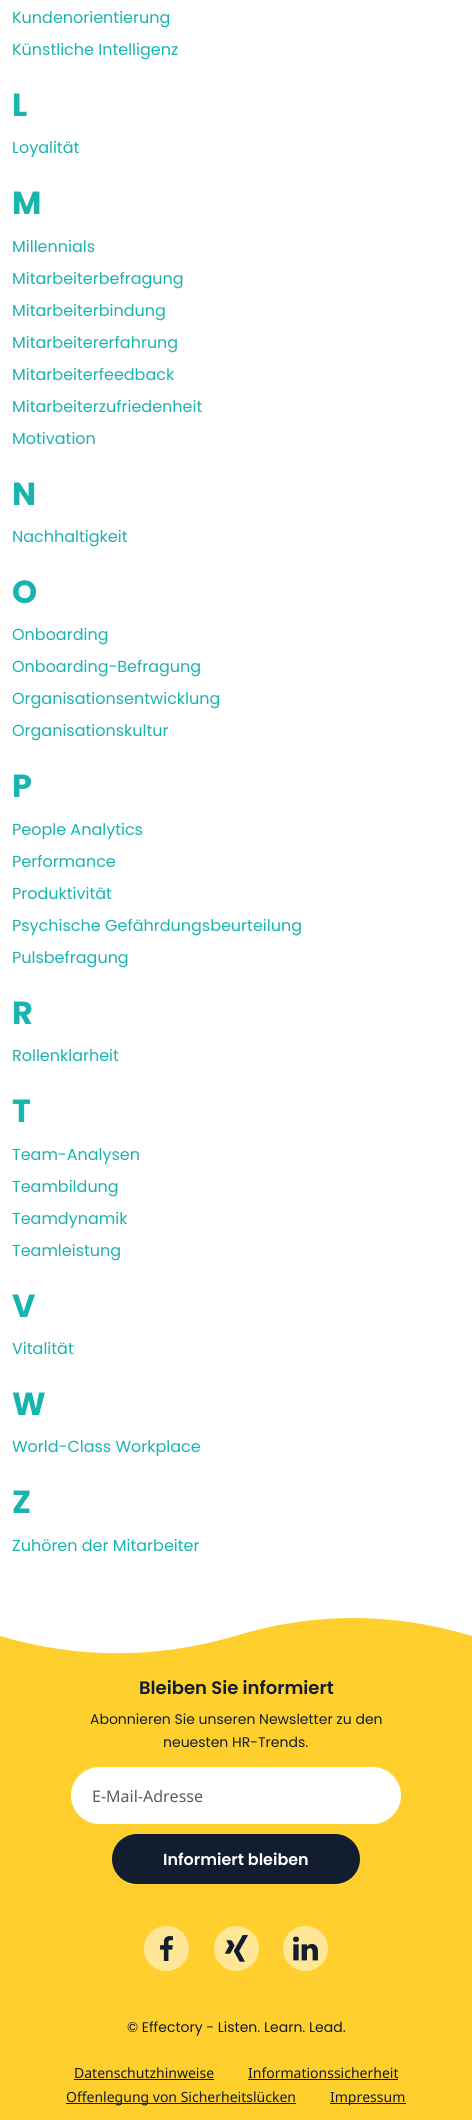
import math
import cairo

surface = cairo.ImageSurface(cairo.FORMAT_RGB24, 472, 2120)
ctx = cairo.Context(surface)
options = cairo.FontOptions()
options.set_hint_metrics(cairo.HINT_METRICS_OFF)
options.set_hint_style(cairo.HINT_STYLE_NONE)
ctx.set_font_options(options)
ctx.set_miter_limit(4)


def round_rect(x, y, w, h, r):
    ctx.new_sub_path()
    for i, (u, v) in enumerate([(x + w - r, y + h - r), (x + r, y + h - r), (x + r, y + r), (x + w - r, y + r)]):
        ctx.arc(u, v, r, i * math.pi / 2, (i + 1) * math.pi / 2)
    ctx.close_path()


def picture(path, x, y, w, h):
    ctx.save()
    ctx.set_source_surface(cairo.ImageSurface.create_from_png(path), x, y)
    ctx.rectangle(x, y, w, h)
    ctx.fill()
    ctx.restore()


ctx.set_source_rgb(1, 1, 1)
ctx.paint()
ctx.select_font_face("Poppins")
ctx.set_font_size(16)
ctx.set_source_rgb(0.098, 0.702, 0.69)
ctx.move_to(12, 23)
ctx.show_text("Kundenorientierung")
ctx.move_to(12, 55)
ctx.show_text("Künstliche Intelligenz")
ctx.select_font_face("Poppins", cairo.FONT_SLANT_NORMAL, cairo.FONT_WEIGHT_BOLD)
ctx.set_font_size(32)
ctx.move_to(12, 116)
ctx.show_text("L")
ctx.select_font_face("Poppins")
ctx.set_font_size(16)
ctx.move_to(12, 153)
ctx.show_text("Loyalität")
ctx.select_font_face("Poppins", cairo.FONT_SLANT_NORMAL, cairo.FONT_WEIGHT_BOLD)
ctx.set_font_size(32)
ctx.move_to(12, 214)
ctx.show_text("M")
ctx.select_font_face("Poppins")
ctx.set_font_size(16)
ctx.move_to(12, 252)
ctx.show_text("Millennials")
ctx.move_to(12, 284)
ctx.show_text("Mitarbeiterbefragung")
ctx.move_to(12, 316)
ctx.show_text("Mitarbeiterbindung")
ctx.move_to(12, 348)
ctx.show_text("Mitarbeitererfahrung")
ctx.move_to(12, 380)
ctx.show_text("Mitarbeiterfeedback")
ctx.move_to(12, 412)
ctx.show_text("Mitarbeiterzufriedenheit")
ctx.move_to(12, 444)
ctx.show_text("Motivation")
ctx.select_font_face("Poppins", cairo.FONT_SLANT_NORMAL, cairo.FONT_WEIGHT_BOLD)
ctx.set_font_size(32)
ctx.move_to(12, 505)
ctx.show_text("N")
ctx.select_font_face("Poppins")
ctx.set_font_size(16)
ctx.move_to(12, 542)
ctx.show_text("Nachhaltigkeit")
ctx.select_font_face("Poppins", cairo.FONT_SLANT_NORMAL, cairo.FONT_WEIGHT_BOLD)
ctx.set_font_size(32)
ctx.move_to(12, 603)
ctx.show_text("O")
ctx.select_font_face("Poppins")
ctx.set_font_size(16)
ctx.move_to(12, 640)
ctx.show_text("Onboarding")
ctx.move_to(12, 672)
ctx.show_text("Onboarding-Befragung")
ctx.move_to(12, 704)
ctx.show_text("Organisationsentwicklung")
ctx.move_to(12, 736)
ctx.show_text("Organisationskultur")
ctx.select_font_face("Poppins", cairo.FONT_SLANT_NORMAL, cairo.FONT_WEIGHT_BOLD)
ctx.set_font_size(32)
ctx.move_to(12, 797)
ctx.show_text("P")
ctx.select_font_face("Poppins")
ctx.set_font_size(16)
ctx.move_to(12, 835)
ctx.show_text("People Analytics")
ctx.move_to(12, 867)
ctx.show_text("Performance")
ctx.move_to(12, 899)
ctx.show_text("Produktivität")
ctx.move_to(12, 931)
ctx.show_text("Psychische Gefährdungsbeurteilung")
ctx.move_to(12, 963)
ctx.show_text("Pulsbefragung")
ctx.select_font_face("Poppins", cairo.FONT_SLANT_NORMAL, cairo.FONT_WEIGHT_BOLD)
ctx.set_font_size(32)
ctx.move_to(12, 1024)
ctx.show_text("R")
ctx.select_font_face("Poppins")
ctx.set_font_size(16)
ctx.move_to(12, 1061)
ctx.show_text("Rollenklarheit")
ctx.select_font_face("Poppins", cairo.FONT_SLANT_NORMAL, cairo.FONT_WEIGHT_BOLD)
ctx.set_font_size(32)
ctx.move_to(12, 1122)
ctx.show_text("T")
ctx.select_font_face("Poppins")
ctx.set_font_size(16)
ctx.move_to(12, 1160)
ctx.show_text("Team-Analysen")
ctx.move_to(12, 1192)
ctx.show_text("Teambildung")
ctx.move_to(12, 1224)
ctx.show_text("Teamdynamik")
ctx.move_to(12, 1256)
ctx.show_text("Teamleistung")
ctx.select_font_face("Poppins", cairo.FONT_SLANT_NORMAL, cairo.FONT_WEIGHT_BOLD)
ctx.set_font_size(32)
ctx.move_to(12, 1317)
ctx.show_text("V")
ctx.select_font_face("Poppins")
ctx.set_font_size(16)
ctx.move_to(12, 1354)
ctx.show_text("Vitalität")
ctx.select_font_face("Poppins", cairo.FONT_SLANT_NORMAL, cairo.FONT_WEIGHT_BOLD)
ctx.set_font_size(32)
ctx.move_to(12, 1415)
ctx.show_text("W")
ctx.select_font_face("Poppins")
ctx.set_font_size(16)
ctx.move_to(12, 1452)
ctx.show_text("World-Class Workplace")
ctx.select_font_face("Poppins", cairo.FONT_SLANT_NORMAL, cairo.FONT_WEIGHT_BOLD)
ctx.set_font_size(32)
ctx.move_to(12, 1513)
ctx.show_text("Z")
ctx.select_font_face("Poppins")
ctx.set_font_size(16)
ctx.move_to(12, 1551)
ctx.show_text("Zuhören der Mitarbeiter")
ctx.set_source_rgb(1, 0.812, 0.18)
ctx.rectangle(0, 1659, 472, 461)
ctx.fill()
ctx.set_fill_rule(cairo.FILL_RULE_EVEN_ODD)
ctx.new_path()
ctx.move_to(0, 1636)
ctx.curve_to(78, 1659, 156, 1659, 235, 1636)
ctx.curve_to(313, 1612, 392, 1612, 472, 1636)
ctx.line_to(472, 1659)
ctx.line_to(0, 1659)
ctx.close_path()
ctx.fill()
ctx.select_font_face("Poppins SemiBold")
ctx.set_font_size(18)
ctx.set_source_rgb(0.071, 0.114, 0.188)
ctx.move_to(139, 1694)
ctx.show_text("Bleiben Sie informiert")
ctx.select_font_face("Poppins")
ctx.set_font_size(14)
ctx.move_to(90, 1724)
ctx.show_text("Abonnieren Sie unseren Newsletter zu den")
ctx.move_to(163, 1747)
ctx.show_text("neuesten HR-Trends.")
ctx.set_source_rgb(1, 1, 1)
round_rect(71, 1767, 330, 57, 28.5)
ctx.fill()
ctx.select_font_face("Noto Sans")
ctx.set_font_size(16)
ctx.set_source_rgb(0.349, 0.361, 0.373)
ctx.move_to(92, 1802)
ctx.show_text("E-Mail-Adresse")
ctx.set_source_rgb(0.071, 0.114, 0.188)
round_rect(112, 1834, 248, 50, 25)
ctx.fill()
ctx.select_font_face("Poppins SemiBold")
ctx.set_source_rgb(1, 1, 1)
ctx.move_to(163, 1865)
ctx.show_text("Informiert bleiben")
ctx.set_source_rgb(1, 0.906, 0.592)
ctx.new_path()
ctx.arc(166.5, 1948.5, 22.5, 0, 2 * math.pi)
ctx.fill()
picture("img1.png", 160, 1936, 13, 25)
ctx.arc(236.5, 1948.5, 22.5, 0, 2 * math.pi)
ctx.fill()
picture("img2.png", 225, 1935, 23, 27)
ctx.arc(305.5, 1948.5, 22.5, 0, 2 * math.pi)
ctx.fill()
picture("img3.png", 293, 1936, 25, 25)
ctx.select_font_face("Poppins")
ctx.set_font_size(14)
ctx.set_source_rgb(0.071, 0.114, 0.188)
ctx.move_to(127, 2032)
ctx.show_text("© Effectory - Listen. Learn. Lead.")
ctx.select_font_face("Noto Sans")
ctx.move_to(74, 2078)
ctx.show_text("Datenschutzhinweise")
ctx.rectangle(74, 2079, 140, 1)
ctx.fill()
ctx.move_to(248, 2078)
ctx.show_text("Informationssicherheit")
ctx.rectangle(248, 2079, 150, 1)
ctx.fill()
ctx.rectangle(66, 2103, 230, 1)
ctx.fill()
ctx.move_to(66, 2102)
ctx.show_text("Offenlegung von Sicherheitslücken")
ctx.rectangle(330, 2103, 76, 1)
ctx.fill()
ctx.move_to(330, 2102)
ctx.show_text("Impressum")
surface.write_to_png("page.png")
